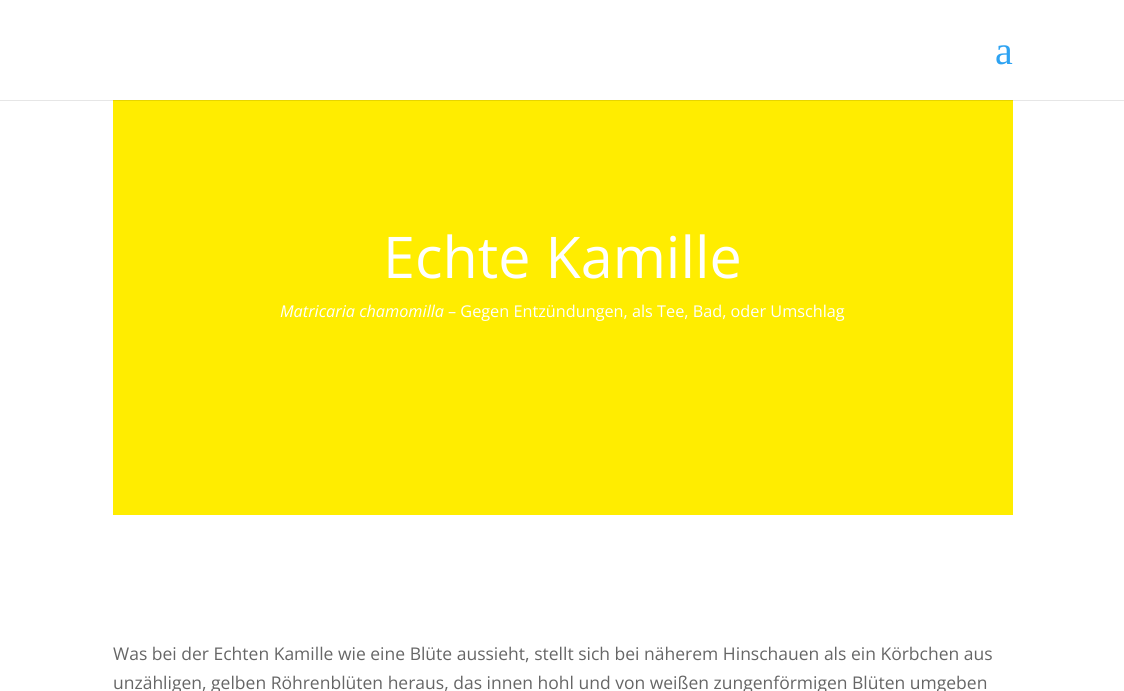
import math
import cairo

surface = cairo.ImageSurface(cairo.FORMAT_RGB24, 1124, 691)
ctx = cairo.Context(surface)
options = cairo.FontOptions()
options.set_hint_metrics(cairo.HINT_METRICS_OFF)
options.set_hint_style(cairo.HINT_STYLE_NONE)
ctx.set_font_options(options)
ctx.set_miter_limit(4)


ctx.set_source_rgb(1, 1, 1)
ctx.paint()
ctx.set_source_rgb(0.902, 0.902, 0.902)
ctx.rectangle(0, 100, 1124, 1)
ctx.fill()
ctx.select_font_face("Liberation Serif")
ctx.set_font_size(40)
ctx.set_source_rgb(0.18, 0.639, 0.949)
ctx.move_to(995, 64)
ctx.show_text("a")
ctx.set_source_rgb(1, 0.929, 0)
ctx.rectangle(113, 101, 900, 414)
ctx.fill()
ctx.set_source_rgb(0.902, 0.835, 0)
ctx.rectangle(113, 100, 900, 1)
ctx.fill()
ctx.select_font_face("Open Sans")
ctx.set_font_size(57.5)
ctx.set_source_rgb(1, 1, 1)
ctx.move_to(383, 278)
ctx.show_text("Echte Kamille")
ctx.select_font_face("Open Sans", cairo.FONT_SLANT_ITALIC)
ctx.set_font_size(16.25)
ctx.move_to(280, 317)
ctx.show_text("Matricaria chamomilla")
ctx.select_font_face("Open Sans")
ctx.move_to(448, 317)
ctx.show_text("– Gegen Entzündungen, als Tee, Bad, oder Umschlag")
ctx.set_font_size(17.5)
ctx.set_source_rgb(0.4, 0.4, 0.4)
ctx.move_to(113, 660)
ctx.show_text("Was bei der Echten Kamille wie eine Blüte aussieht, stellt sich bei näherem Hinschauen als ein Körbchen aus")
ctx.move_to(113, 689)
ctx.show_text("unzähligen, gelben Röhrenblüten heraus, das innen hohl und von weißen zungenförmigen Blüten umgeben")
surface.write_to_png("page.png")
